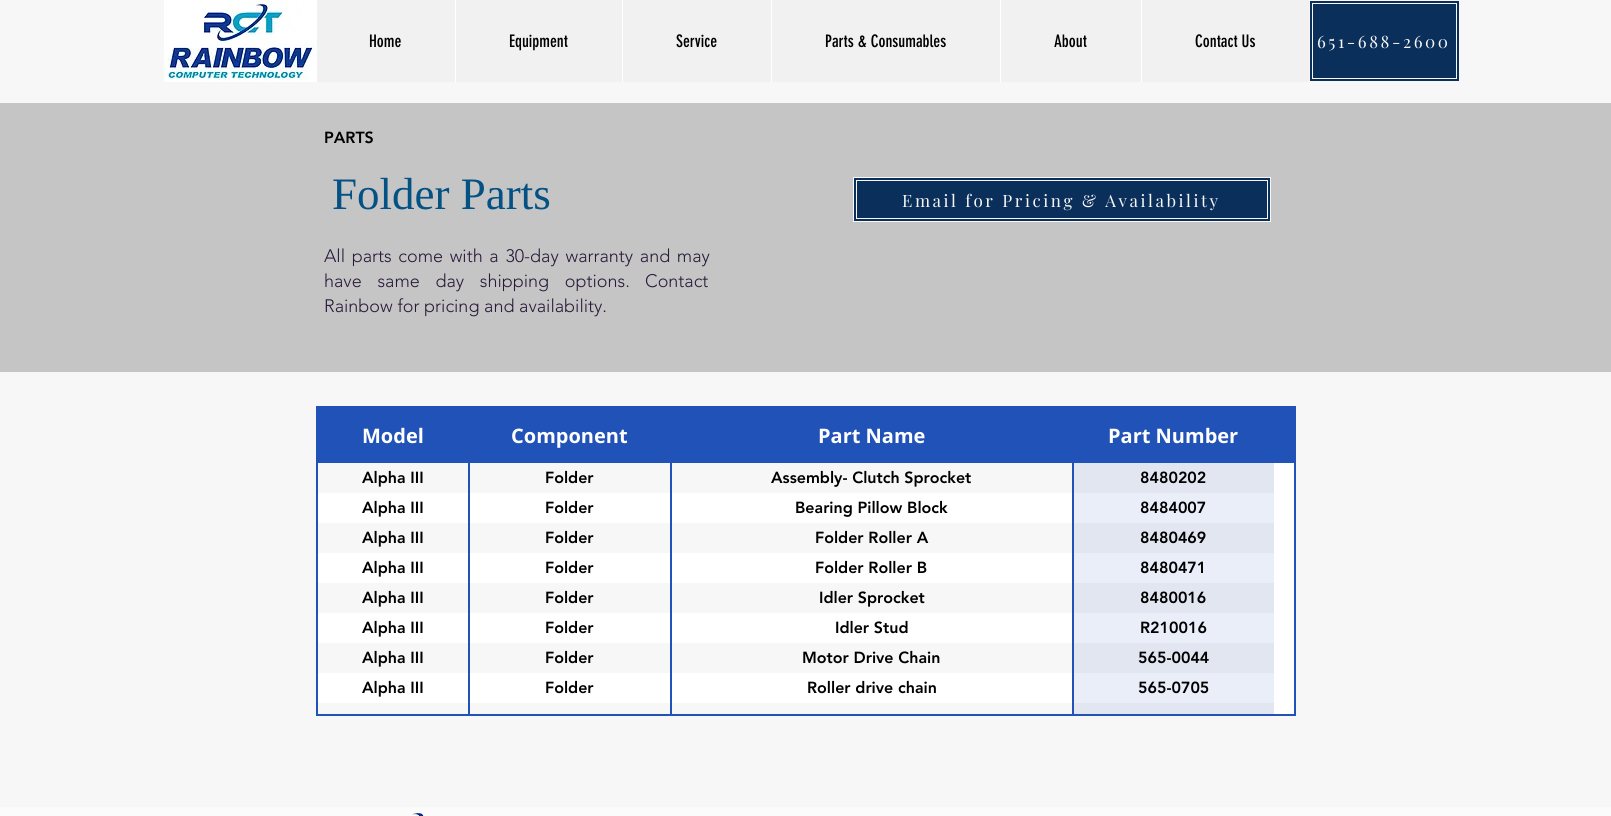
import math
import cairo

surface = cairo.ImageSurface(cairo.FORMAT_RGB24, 1611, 816)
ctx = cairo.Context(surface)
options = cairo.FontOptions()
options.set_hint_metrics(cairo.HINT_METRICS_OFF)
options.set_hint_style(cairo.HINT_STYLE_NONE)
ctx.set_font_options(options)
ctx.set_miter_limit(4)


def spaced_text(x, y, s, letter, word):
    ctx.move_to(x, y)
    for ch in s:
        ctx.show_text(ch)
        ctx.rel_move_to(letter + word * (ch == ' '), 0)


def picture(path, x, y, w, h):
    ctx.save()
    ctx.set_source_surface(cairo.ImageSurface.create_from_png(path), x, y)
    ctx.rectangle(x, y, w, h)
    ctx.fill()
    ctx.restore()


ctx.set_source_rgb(0.965, 0.965, 0.965)
ctx.paint()
picture("img1.png", 164, 0, 153, 82)
ctx.set_source_rgb(0.945, 0.945, 0.945)
ctx.rectangle(317, 0, 992, 82)
ctx.fill()
ctx.select_font_face("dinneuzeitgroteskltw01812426")
ctx.set_font_size(17)
ctx.set_source_rgb(0, 0, 0)
ctx.move_to(369, 47)
ctx.show_text("Home")
ctx.set_source_rgb(1, 1, 1)
ctx.rectangle(455, 0, 1, 82)
ctx.fill()
ctx.set_source_rgb(0, 0, 0)
ctx.move_to(509, 47)
ctx.show_text("Equipment")
ctx.set_source_rgb(1, 1, 1)
ctx.rectangle(622, 0, 1, 82)
ctx.fill()
ctx.set_source_rgb(0, 0, 0)
ctx.move_to(676, 47)
ctx.show_text("Service")
ctx.set_source_rgb(1, 1, 1)
ctx.rectangle(771, 0, 1, 82)
ctx.fill()
ctx.set_source_rgb(0, 0, 0)
ctx.move_to(825, 47)
ctx.show_text("Parts & Consumables")
ctx.set_source_rgb(1, 1, 1)
ctx.rectangle(1000, 0, 1, 82)
ctx.fill()
ctx.set_source_rgb(0, 0, 0)
ctx.move_to(1054, 47)
ctx.show_text("About")
ctx.set_source_rgb(1, 1, 1)
ctx.rectangle(1141, 0, 1, 82)
ctx.fill()
ctx.set_source_rgb(0, 0, 0)
ctx.move_to(1195, 47)
ctx.show_text("Contact Us")
ctx.set_source_rgb(0.043, 0.184, 0.357)
ctx.rectangle(1310, 1, 149, 80)
ctx.fill()
ctx.rectangle(1312.5, 3.5, 144, 75)
ctx.set_source_rgb(0.965, 0.965, 0.965)
ctx.set_line_width(1)
ctx.stroke()
ctx.select_font_face("Playfair Display")
spaced_text(1317, 48, "651-688-2600", 2.55, 0)
ctx.set_source_rgb(0.773, 0.773, 0.773)
ctx.rectangle(0, 103, 1611, 269)
ctx.fill()
ctx.select_font_face("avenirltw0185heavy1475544 Black")
ctx.set_font_size(16)
ctx.set_source_rgb(0, 0, 0)
ctx.move_to(324, 143)
ctx.show_text("PARTS")
ctx.select_font_face("Liberation Serif")
ctx.set_font_size(45)
ctx.set_source_rgb(0.016, 0.318, 0.518)
ctx.move_to(332, 209)
ctx.show_text("Folder Parts")
ctx.select_font_face("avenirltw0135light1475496 Light")
ctx.set_font_size(18)
ctx.set_source_rgb(0.157, 0.102, 0.224)
spaced_text(324, 262, "All parts come with a 30-day warranty and may", 0, 2)
spaced_text(324, 287, "have same day shipping options.", 0, 11)
ctx.move_to(645, 287)
ctx.show_text("Contact")
ctx.move_to(324, 312)
ctx.show_text("Rainbow for pricing and availability.")
ctx.set_source_rgb(0.043, 0.184, 0.357)
ctx.rectangle(853.5, 177.5, 417, 44)
ctx.fill_preserve()
ctx.set_source_rgb(0.965, 0.965, 0.965)
ctx.stroke()
ctx.rectangle(856.5, 180.5, 411, 38)
ctx.stroke()
ctx.select_font_face("Playfair Display")
ctx.set_font_size(17)
spaced_text(902, 207, "Email for Pricing & Availability", 2.55, 0)
ctx.set_source_rgb(1, 1, 1)
ctx.rectangle(318, 463, 976, 251)
ctx.fill()
ctx.rectangle(317, 407, 978, 308)
ctx.set_source_rgb(0.125, 0.322, 0.718)
ctx.set_line_width(2)
ctx.stroke()
ctx.rectangle(318, 408, 976, 55)
ctx.fill()
ctx.select_font_face("Open Sans", cairo.FONT_SLANT_NORMAL, cairo.FONT_WEIGHT_BOLD)
ctx.set_font_size(20)
ctx.set_source_rgb(1, 1, 1)
ctx.move_to(362, 443)
ctx.show_text("Model")
ctx.move_to(511, 443)
ctx.show_text("Component")
ctx.move_to(818, 443)
ctx.show_text("Part Name")
ctx.move_to(1108, 443)
ctx.show_text("Part Number")
ctx.set_source_rgb(0.965, 0.965, 0.965)
ctx.rectangle(318, 463, 754, 30)
ctx.fill()
ctx.set_source_rgb(0.125, 0.322, 0.718)
ctx.rectangle(468, 463, 2, 60)
ctx.fill()
ctx.select_font_face("avenirltw0185heavy1475544 Black")
ctx.set_font_size(16)
ctx.set_source_rgb(0, 0, 0)
ctx.move_to(362, 483)
ctx.show_text("Alpha III")
ctx.set_source_rgb(0.125, 0.322, 0.718)
ctx.rectangle(670, 463, 2, 60)
ctx.fill()
ctx.set_source_rgb(0, 0, 0)
ctx.move_to(545, 483)
ctx.show_text("Folder")
ctx.set_source_rgb(0.125, 0.322, 0.718)
ctx.rectangle(1072, 463, 2, 251)
ctx.fill()
ctx.set_source_rgb(0, 0, 0)
ctx.move_to(771, 483)
ctx.show_text("Assembly- Clutch Sprocket")
ctx.set_source_rgb(0.882, 0.902, 0.941)
ctx.rectangle(1074, 463, 200, 30)
ctx.fill()
ctx.set_source_rgb(0, 0, 0)
ctx.move_to(1140, 483)
ctx.show_text("8480202")
ctx.move_to(362, 513)
ctx.show_text("Alpha III")
ctx.move_to(545, 513)
ctx.show_text("Folder")
ctx.move_to(795, 513)
ctx.show_text("Bearing Pillow Block")
ctx.set_source_rgb(0.914, 0.933, 0.973)
ctx.rectangle(1074, 493, 200, 30)
ctx.fill()
ctx.set_source_rgb(0, 0, 0)
ctx.move_to(1140, 513)
ctx.show_text("8484007")
ctx.set_source_rgb(0.965, 0.965, 0.965)
ctx.rectangle(318, 523, 754, 30)
ctx.fill()
ctx.set_source_rgb(0.125, 0.322, 0.718)
ctx.rectangle(468, 523, 2, 60)
ctx.fill()
ctx.set_source_rgb(0, 0, 0)
ctx.move_to(362, 543)
ctx.show_text("Alpha III")
ctx.set_source_rgb(0.125, 0.322, 0.718)
ctx.rectangle(670, 523, 2, 60)
ctx.fill()
ctx.set_source_rgb(0, 0, 0)
ctx.move_to(545, 543)
ctx.show_text("Folder")
ctx.move_to(815, 543)
ctx.show_text("Folder Roller A")
ctx.set_source_rgb(0.882, 0.902, 0.941)
ctx.rectangle(1074, 523, 200, 30)
ctx.fill()
ctx.set_source_rgb(0, 0, 0)
ctx.move_to(1140, 543)
ctx.show_text("8480469")
ctx.move_to(362, 573)
ctx.show_text("Alpha III")
ctx.move_to(545, 573)
ctx.show_text("Folder")
ctx.move_to(815, 573)
ctx.show_text("Folder Roller B")
ctx.set_source_rgb(0.914, 0.933, 0.973)
ctx.rectangle(1074, 553, 200, 30)
ctx.fill()
ctx.set_source_rgb(0, 0, 0)
ctx.move_to(1140, 573)
ctx.show_text("8480471")
ctx.set_source_rgb(0.965, 0.965, 0.965)
ctx.rectangle(318, 583, 754, 30)
ctx.fill()
ctx.set_source_rgb(0.125, 0.322, 0.718)
ctx.rectangle(468, 583, 2, 60)
ctx.fill()
ctx.set_source_rgb(0, 0, 0)
ctx.move_to(362, 603)
ctx.show_text("Alpha III")
ctx.set_source_rgb(0.125, 0.322, 0.718)
ctx.rectangle(670, 583, 2, 60)
ctx.fill()
ctx.set_source_rgb(0, 0, 0)
ctx.move_to(545, 603)
ctx.show_text("Folder")
ctx.move_to(819, 603)
ctx.show_text("Idler Sprocket")
ctx.set_source_rgb(0.882, 0.902, 0.941)
ctx.rectangle(1074, 583, 200, 30)
ctx.fill()
ctx.set_source_rgb(0, 0, 0)
ctx.move_to(1140, 603)
ctx.show_text("8480016")
ctx.move_to(362, 633)
ctx.show_text("Alpha III")
ctx.move_to(545, 633)
ctx.show_text("Folder")
ctx.move_to(835, 633)
ctx.show_text("Idler Stud")
ctx.set_source_rgb(0.914, 0.933, 0.973)
ctx.rectangle(1074, 613, 200, 30)
ctx.fill()
ctx.set_source_rgb(0, 0, 0)
ctx.move_to(1140, 633)
ctx.show_text("R210016")
ctx.set_source_rgb(0.965, 0.965, 0.965)
ctx.rectangle(318, 643, 754, 30)
ctx.fill()
ctx.set_source_rgb(0.125, 0.322, 0.718)
ctx.rectangle(468, 643, 2, 60)
ctx.fill()
ctx.set_source_rgb(0, 0, 0)
ctx.move_to(362, 663)
ctx.show_text("Alpha III")
ctx.set_source_rgb(0.125, 0.322, 0.718)
ctx.rectangle(670, 643, 2, 60)
ctx.fill()
ctx.set_source_rgb(0, 0, 0)
ctx.move_to(545, 663)
ctx.show_text("Folder")
ctx.move_to(802, 663)
ctx.show_text("Motor Drive Chain")
ctx.set_source_rgb(0.882, 0.902, 0.941)
ctx.rectangle(1074, 643, 200, 30)
ctx.fill()
ctx.set_source_rgb(0, 0, 0)
ctx.move_to(1138, 663)
ctx.show_text("565-0044")
ctx.move_to(362, 693)
ctx.show_text("Alpha III")
ctx.move_to(545, 693)
ctx.show_text("Folder")
ctx.move_to(807, 693)
ctx.show_text("Roller drive chain")
ctx.set_source_rgb(0.914, 0.933, 0.973)
ctx.rectangle(1074, 673, 200, 30)
ctx.fill()
ctx.set_source_rgb(0, 0, 0)
ctx.move_to(1138, 693)
ctx.show_text("565-0705")
ctx.set_source_rgb(0.965, 0.965, 0.965)
ctx.rectangle(318, 703, 754, 11)
ctx.fill()
ctx.set_source_rgb(0.125, 0.322, 0.718)
ctx.rectangle(468, 703, 2, 11)
ctx.fill()
ctx.rectangle(670, 703, 2, 11)
ctx.fill()
ctx.set_source_rgb(0.882, 0.902, 0.941)
ctx.rectangle(1074, 703, 200, 11)
ctx.fill()
ctx.set_source_rgb(0.984, 0.984, 0.984)
ctx.rectangle(0, 807, 1611, 9)
ctx.fill()
picture("img2.png", 412, 811, 12, 5)
surface.write_to_png("page.png")
